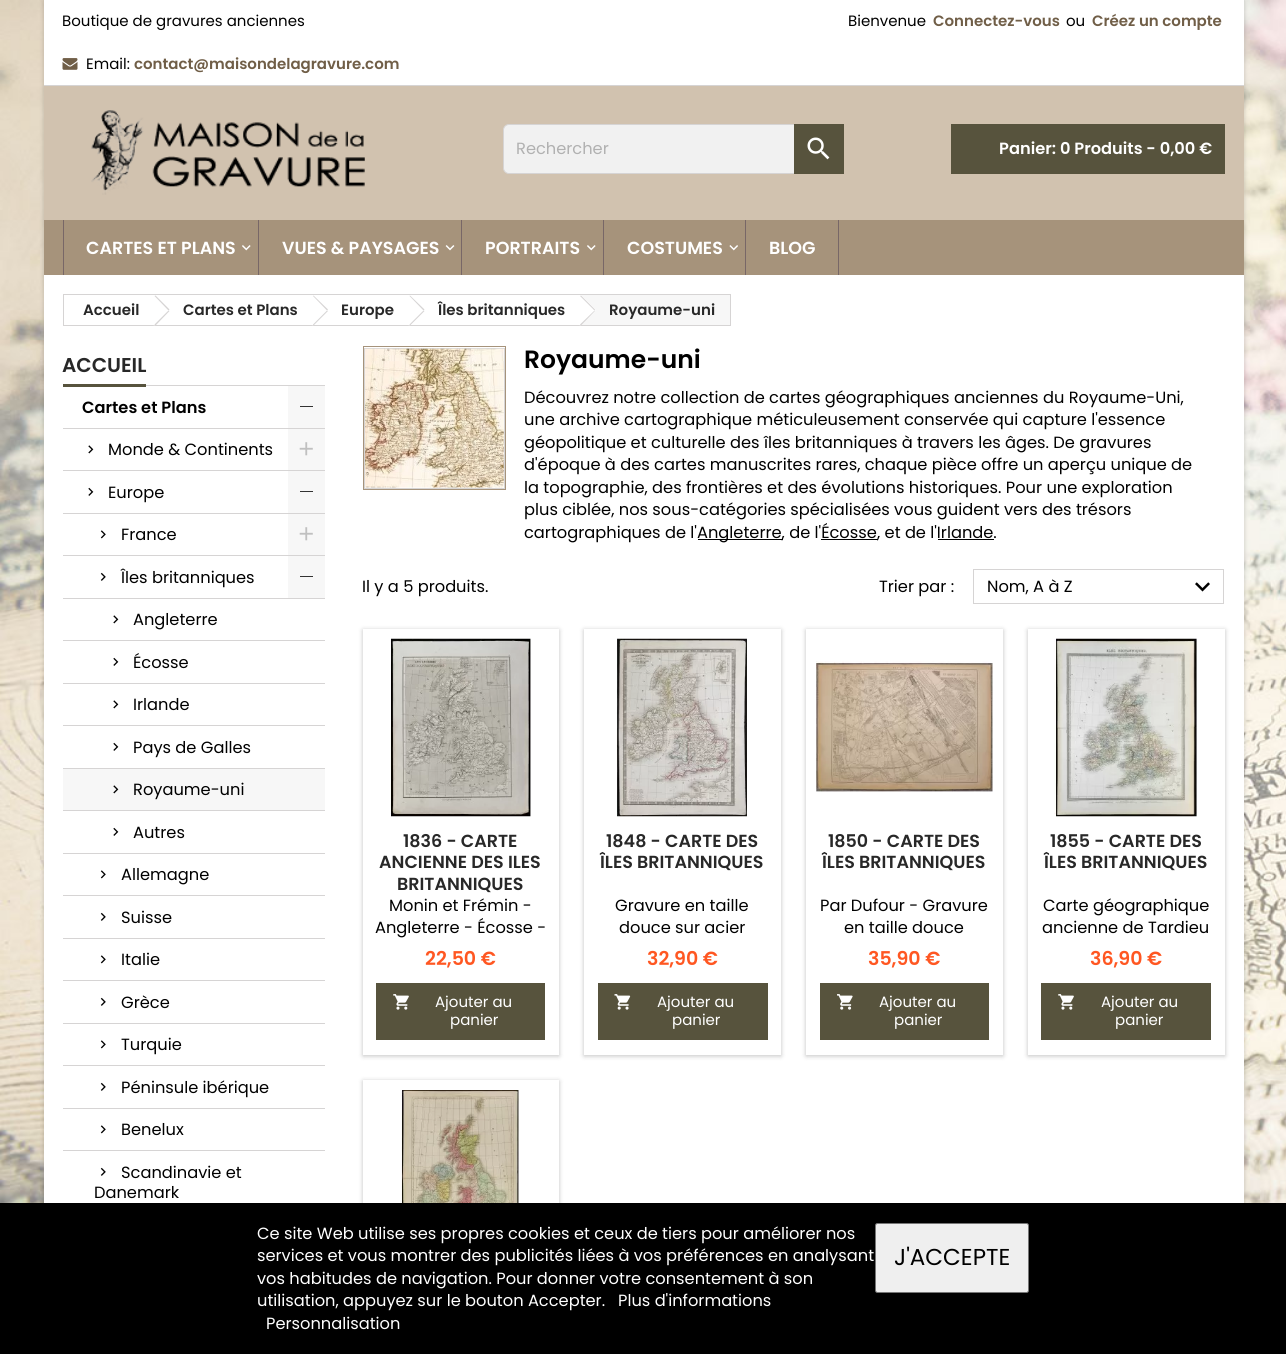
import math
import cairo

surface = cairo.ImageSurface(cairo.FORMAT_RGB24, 1286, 1354)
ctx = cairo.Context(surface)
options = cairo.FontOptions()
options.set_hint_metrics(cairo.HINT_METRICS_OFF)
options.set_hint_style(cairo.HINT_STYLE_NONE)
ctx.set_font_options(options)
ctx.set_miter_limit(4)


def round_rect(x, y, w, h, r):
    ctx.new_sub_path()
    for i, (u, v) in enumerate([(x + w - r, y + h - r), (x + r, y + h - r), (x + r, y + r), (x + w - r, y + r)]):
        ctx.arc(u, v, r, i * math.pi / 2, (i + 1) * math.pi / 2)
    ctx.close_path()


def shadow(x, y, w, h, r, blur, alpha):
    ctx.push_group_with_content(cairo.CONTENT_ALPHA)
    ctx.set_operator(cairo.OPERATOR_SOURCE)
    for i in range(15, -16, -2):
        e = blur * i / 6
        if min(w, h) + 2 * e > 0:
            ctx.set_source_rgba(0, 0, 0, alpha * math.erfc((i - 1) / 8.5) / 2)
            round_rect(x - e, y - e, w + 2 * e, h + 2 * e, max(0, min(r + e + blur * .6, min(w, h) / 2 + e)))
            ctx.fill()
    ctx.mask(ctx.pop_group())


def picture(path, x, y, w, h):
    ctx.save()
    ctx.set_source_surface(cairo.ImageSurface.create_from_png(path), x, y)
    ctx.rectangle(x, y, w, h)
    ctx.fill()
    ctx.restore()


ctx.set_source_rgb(1, 1, 1)
ctx.paint()
picture("img1.png", 0, 0, 1286, 1203)
ctx.set_source_rgb(0, 0, 0)
shadow(44, 0, 1200, 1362, 0, 2.5, 0.2)
ctx.set_source_rgb(1, 1, 1)
ctx.rectangle(44, 275, 1200, 928)
ctx.fill()
ctx.set_source_rgb(0.82, 0.761, 0.686)
ctx.rectangle(44, 86, 1200, 134)
ctx.fill()
ctx.set_source_rgb(1, 1, 1)
ctx.rectangle(44, 0, 1200, 85)
ctx.fill()
ctx.set_source_rgb(0.839, 0.831, 0.831)
ctx.rectangle(44, 85, 1200, 1)
ctx.fill()
ctx.select_font_face("Poppins")
ctx.set_font_size(15)
ctx.set_source_rgb(0, 0, 0)
ctx.move_to(62, 26)
ctx.show_text("Boutique de gravures anciennes")
picture("img2.png", 62, 58, 16, 12)
ctx.move_to(86, 69)
ctx.show_text("Email:")
ctx.select_font_face("Poppins SemiBold")
ctx.set_source_rgb(0.439, 0.369, 0.278)
ctx.move_to(134, 69)
ctx.show_text("contact@maisondelagravure.com")
ctx.select_font_face("Poppins")
ctx.set_source_rgb(0, 0, 0)
ctx.move_to(848, 26)
ctx.show_text("Bienvenue")
ctx.select_font_face("Poppins SemiBold")
ctx.set_source_rgb(0.439, 0.369, 0.278)
ctx.move_to(933, 26)
ctx.show_text("Connectez-vous")
ctx.select_font_face("Poppins")
ctx.set_source_rgb(0, 0, 0)
ctx.move_to(1066, 26)
ctx.show_text("ou")
ctx.select_font_face("Poppins SemiBold")
ctx.set_source_rgb(0.439, 0.369, 0.278)
ctx.move_to(1092, 26)
ctx.show_text("Créez un compte")
picture("img3.png", 91, 110, 274, 85)
ctx.set_source_rgb(0.945, 0.945, 0.945)
round_rect(503.5, 124.5, 340, 49, 5.5)
ctx.fill_preserve()
ctx.set_source_rgb(0.839, 0.831, 0.831)
ctx.set_line_width(1)
ctx.stroke()
ctx.select_font_face("Poppins")
ctx.set_font_size(16.25)
ctx.set_source_rgb(0.694, 0.694, 0.694)
ctx.move_to(516, 154)
ctx.show_text("Rechercher")
ctx.set_source_rgb(0.341, 0.325, 0.239)
ctx.rectangle(794, 124, 50, 50)
ctx.fill()
picture("img4.png", 807, 137, 23, 23)
ctx.rectangle(951, 124, 274, 50)
ctx.fill()
ctx.select_font_face("Poppins SemiBold")
ctx.set_source_rgb(1, 1, 1)
ctx.move_to(999, 154)
ctx.show_text("Panier: 0 Produits - 0,00 €")
ctx.set_source_rgb(0.651, 0.576, 0.482)
ctx.rectangle(44, 220, 1200, 55)
ctx.fill()
ctx.set_source_rgb(0.471, 0.404, 0.404)
ctx.rectangle(258, 220, 1, 55)
ctx.fill()
ctx.rectangle(63, 220, 1, 55)
ctx.fill()
ctx.set_font_size(17.5)
ctx.set_source_rgb(1, 1, 1)
ctx.move_to(86, 254)
ctx.show_text("CARTES ET PLANS")
picture("img5.png", 242, 245, 9, 6)
ctx.set_source_rgb(0.471, 0.404, 0.404)
ctx.rectangle(461, 220, 1, 55)
ctx.fill()
ctx.set_source_rgb(1, 1, 1)
ctx.move_to(282, 254)
ctx.show_text("VUES & PAYSAGES")
picture("img6.png", 445, 245, 10, 6)
ctx.set_source_rgb(0.471, 0.404, 0.404)
ctx.rectangle(603, 220, 1, 55)
ctx.fill()
ctx.set_source_rgb(1, 1, 1)
ctx.move_to(485, 254)
ctx.show_text("PORTRAITS")
picture("img5.png", 587, 245, 9, 6)
ctx.set_source_rgb(0.471, 0.404, 0.404)
ctx.rectangle(745, 220, 1, 55)
ctx.fill()
ctx.set_source_rgb(1, 1, 1)
ctx.move_to(627, 254)
ctx.show_text("COSTUMES")
picture("img7.png", 729, 245, 9, 6)
ctx.set_source_rgb(0.471, 0.404, 0.404)
ctx.rectangle(838, 220, 1, 55)
ctx.fill()
ctx.set_source_rgb(1, 1, 1)
ctx.move_to(769, 254)
ctx.show_text("BLOG")
ctx.rectangle(63.5, 294.5, 667, 31)
ctx.set_source_rgb(0.839, 0.831, 0.831)
ctx.stroke()
ctx.set_font_size(15)
ctx.set_source_rgb(0.157, 0.157, 0.157)
ctx.move_to(83, 315)
ctx.show_text("Accueil")
ctx.set_source_rgb(1, 1, 1)
ctx.new_path()
ctx.move_to(156, 296)
ctx.line_to(168.5, 308.5)
ctx.curve_to(169.5, 309.5, 169.5, 311, 168.5, 312)
ctx.line_to(156, 324.5)
ctx.curve_to(155, 325.5, 153.5, 325.5, 152.5, 324.5)
ctx.line_to(140.5, 312)
ctx.curve_to(139.5, 311, 139.5, 309.5, 140.5, 308.5)
ctx.line_to(152.5, 296)
ctx.curve_to(153.5, 295, 155, 295, 156, 296)
ctx.close_path()
ctx.fill()
ctx.set_source_rgb(0.839, 0.831, 0.831)
ctx.new_path()
ctx.move_to(155.5, 295.5)
ctx.line_to(169.5, 309.5)
ctx.line_to(168.5, 310.5)
ctx.line_to(154.5, 296)
ctx.close_path()
ctx.fill()
ctx.new_path()
ctx.move_to(168.5, 310.5)
ctx.line_to(169.5, 311)
ctx.line_to(155.5, 325.5)
ctx.line_to(154.5, 324.5)
ctx.close_path()
ctx.fill()
ctx.set_source_rgb(0.157, 0.157, 0.157)
ctx.move_to(183, 315)
ctx.show_text("Cartes et Plans")
ctx.set_source_rgb(1, 1, 1)
ctx.new_path()
ctx.move_to(314.5, 296)
ctx.line_to(327, 308.5)
ctx.curve_to(328, 309.5, 328, 311, 327, 312)
ctx.line_to(314.5, 324.5)
ctx.curve_to(313.5, 325.5, 312, 325.5, 311, 324.5)
ctx.line_to(298.5, 312)
ctx.curve_to(297.5, 311, 297.5, 309.5, 298.5, 308.5)
ctx.line_to(311, 296)
ctx.curve_to(312, 295, 313.5, 295, 314.5, 296)
ctx.close_path()
ctx.fill()
ctx.set_source_rgb(0.839, 0.831, 0.831)
ctx.new_path()
ctx.move_to(313.5, 295.5)
ctx.line_to(328, 309.5)
ctx.line_to(327, 310.5)
ctx.line_to(313, 296)
ctx.close_path()
ctx.fill()
ctx.new_path()
ctx.move_to(327, 310.5)
ctx.line_to(328, 311)
ctx.line_to(313.5, 325.5)
ctx.line_to(313, 324.5)
ctx.close_path()
ctx.fill()
ctx.set_source_rgb(0.157, 0.157, 0.157)
ctx.move_to(341, 315)
ctx.show_text("Europe")
ctx.set_source_rgb(1, 1, 1)
ctx.new_path()
ctx.move_to(411, 296)
ctx.line_to(423.5, 308.5)
ctx.curve_to(424.5, 309.5, 424.5, 311, 423.5, 312)
ctx.line_to(411, 324.5)
ctx.curve_to(410, 325.5, 408.5, 325.5, 407.5, 324.5)
ctx.line_to(395, 312)
ctx.curve_to(394, 311, 394, 309.5, 395, 308.5)
ctx.line_to(407.5, 296)
ctx.curve_to(408.5, 295, 410, 295, 411, 296)
ctx.close_path()
ctx.fill()
ctx.set_source_rgb(0.839, 0.831, 0.831)
ctx.new_path()
ctx.move_to(410, 295.5)
ctx.line_to(424.5, 309.5)
ctx.line_to(423.5, 310.5)
ctx.line_to(409.5, 296)
ctx.close_path()
ctx.fill()
ctx.new_path()
ctx.move_to(423.5, 310.5)
ctx.line_to(424.5, 311)
ctx.line_to(410, 325.5)
ctx.line_to(409.5, 324.5)
ctx.close_path()
ctx.fill()
ctx.set_source_rgb(0.157, 0.157, 0.157)
ctx.move_to(438, 315)
ctx.show_text("Îles britanniques")
ctx.set_source_rgb(0.965, 0.965, 0.965)
ctx.rectangle(581, 295, 149, 30)
ctx.fill()
ctx.set_source_rgb(1, 1, 1)
ctx.new_path()
ctx.move_to(582, 296)
ctx.line_to(594.5, 308.5)
ctx.curve_to(595.5, 309.5, 595.5, 311, 594.5, 312)
ctx.line_to(582, 324.5)
ctx.curve_to(581, 325.5, 579.5, 325.5, 578.5, 324.5)
ctx.line_to(566, 312)
ctx.curve_to(565, 311, 565, 309.5, 566, 308.5)
ctx.line_to(578.5, 296)
ctx.curve_to(579.5, 295, 581, 295, 582, 296)
ctx.close_path()
ctx.fill()
ctx.set_source_rgb(0.839, 0.831, 0.831)
ctx.new_path()
ctx.move_to(581, 295.5)
ctx.line_to(595, 309.5)
ctx.line_to(594.5, 310.5)
ctx.line_to(580, 296)
ctx.close_path()
ctx.fill()
ctx.new_path()
ctx.move_to(594.5, 310.5)
ctx.line_to(595, 311)
ctx.line_to(581, 325.5)
ctx.line_to(580, 324.5)
ctx.close_path()
ctx.fill()
ctx.set_source_rgb(0.157, 0.157, 0.157)
ctx.move_to(609, 315)
ctx.show_text("Royaume-uni")
ctx.set_source_rgb(0.839, 0.831, 0.831)
ctx.rectangle(146, 385, 179, 1)
ctx.fill()
ctx.set_source_rgb(0.341, 0.325, 0.239)
ctx.rectangle(63, 384, 83, 3)
ctx.fill()
ctx.set_font_size(20)
ctx.set_source_rgb(0.157, 0.157, 0.157)
ctx.move_to(62, 372)
ctx.show_text("ACCUEIL")
ctx.set_source_rgb(0.839, 0.831, 0.831)
ctx.rectangle(63, 428, 262, 1)
ctx.fill()
ctx.set_font_size(16.25)
ctx.set_source_rgb(0, 0, 0)
ctx.move_to(82, 413)
ctx.show_text("Cartes et Plans")
ctx.set_source_rgb(0.965, 0.965, 0.965)
ctx.rectangle(288, 386, 37, 42)
ctx.fill()
ctx.set_source_rgb(0.2, 0.2, 0.2)
ctx.rectangle(300, 406, 13, 1)
ctx.fill()
ctx.set_source_rgb(0.839, 0.831, 0.831)
ctx.rectangle(63, 470, 262, 1)
ctx.fill()
picture("img8.png", 88, 445, 6, 9)
ctx.select_font_face("Poppins")
ctx.set_source_rgb(0, 0, 0)
ctx.move_to(108, 455)
ctx.show_text("Monde & Continents")
ctx.set_source_rgb(0.965, 0.965, 0.965)
ctx.rectangle(288, 429, 37, 41)
ctx.fill()
picture("img9.png", 299, 442, 14, 14)
ctx.set_source_rgb(0.839, 0.831, 0.831)
ctx.rectangle(63, 513, 262, 1)
ctx.fill()
picture("img10.png", 88, 487, 6, 9)
ctx.set_source_rgb(0, 0, 0)
ctx.move_to(108, 498)
ctx.show_text("Europe")
ctx.set_source_rgb(0.965, 0.965, 0.965)
ctx.rectangle(288, 471, 37, 42)
ctx.fill()
ctx.set_source_rgb(0.2, 0.2, 0.2)
ctx.rectangle(300, 491, 13, 1)
ctx.fill()
ctx.set_source_rgb(0.839, 0.831, 0.831)
ctx.rectangle(63, 555, 262, 1)
ctx.fill()
picture("img11.png", 100, 530, 6, 9)
ctx.set_source_rgb(0, 0, 0)
ctx.move_to(121, 540)
ctx.show_text("France")
ctx.set_source_rgb(0.965, 0.965, 0.965)
ctx.rectangle(288, 514, 37, 41)
ctx.fill()
picture("img9.png", 299, 527, 14, 14)
ctx.set_source_rgb(0.839, 0.831, 0.831)
ctx.rectangle(63, 598, 262, 1)
ctx.fill()
picture("img12.png", 100, 572, 6, 9)
ctx.set_source_rgb(0, 0, 0)
ctx.move_to(121, 583)
ctx.show_text("Îles britanniques")
ctx.set_source_rgb(0.965, 0.965, 0.965)
ctx.rectangle(288, 556, 37, 42)
ctx.fill()
ctx.set_source_rgb(0.2, 0.2, 0.2)
ctx.rectangle(300, 576, 13, 1)
ctx.fill()
ctx.set_source_rgb(0.839, 0.831, 0.831)
ctx.rectangle(63, 640, 262, 1)
ctx.fill()
picture("img8.png", 113, 615, 6, 9)
ctx.set_source_rgb(0, 0, 0)
ctx.move_to(133, 625)
ctx.show_text("Angleterre")
ctx.set_source_rgb(0.839, 0.831, 0.831)
ctx.rectangle(63, 683, 262, 1)
ctx.fill()
picture("img10.png", 113, 657, 6, 9)
ctx.set_source_rgb(0, 0, 0)
ctx.move_to(133, 668)
ctx.show_text("Écosse")
ctx.set_source_rgb(0.839, 0.831, 0.831)
ctx.rectangle(63, 725, 262, 1)
ctx.fill()
picture("img8.png", 113, 700, 6, 9)
ctx.set_source_rgb(0, 0, 0)
ctx.move_to(133, 710)
ctx.show_text("Irlande")
ctx.set_source_rgb(0.839, 0.831, 0.831)
ctx.rectangle(63, 768, 262, 1)
ctx.fill()
picture("img10.png", 113, 742, 6, 9)
ctx.set_source_rgb(0, 0, 0)
ctx.move_to(133, 753)
ctx.show_text("Pays de Galles")
ctx.set_source_rgb(0.965, 0.965, 0.965)
ctx.rectangle(63, 769, 262, 41)
ctx.fill()
ctx.set_source_rgb(0.839, 0.831, 0.831)
ctx.rectangle(63, 810, 262, 1)
ctx.fill()
picture("img13.png", 113, 785, 6, 9)
ctx.set_source_rgb(0, 0, 0)
ctx.move_to(133, 795)
ctx.show_text("Royaume-uni")
ctx.set_source_rgb(0.839, 0.831, 0.831)
ctx.rectangle(63, 853, 262, 1)
ctx.fill()
picture("img10.png", 113, 827, 6, 9)
ctx.set_source_rgb(0, 0, 0)
ctx.move_to(133, 838)
ctx.show_text("Autres")
ctx.set_source_rgb(0.839, 0.831, 0.831)
ctx.rectangle(63, 895, 262, 1)
ctx.fill()
picture("img11.png", 100, 870, 6, 9)
ctx.set_source_rgb(0, 0, 0)
ctx.move_to(121, 880)
ctx.show_text("Allemagne")
ctx.set_source_rgb(0.839, 0.831, 0.831)
ctx.rectangle(63, 938, 262, 1)
ctx.fill()
picture("img12.png", 100, 912, 6, 9)
ctx.set_source_rgb(0, 0, 0)
ctx.move_to(121, 923)
ctx.show_text("Suisse")
ctx.set_source_rgb(0.839, 0.831, 0.831)
ctx.rectangle(63, 980, 262, 1)
ctx.fill()
picture("img11.png", 100, 955, 6, 9)
ctx.set_source_rgb(0, 0, 0)
ctx.move_to(121, 965)
ctx.show_text("Italie")
ctx.set_source_rgb(0.839, 0.831, 0.831)
ctx.rectangle(63, 1023, 262, 1)
ctx.fill()
picture("img12.png", 100, 997, 6, 9)
ctx.set_source_rgb(0, 0, 0)
ctx.move_to(121, 1008)
ctx.show_text("Grèce")
ctx.set_source_rgb(0.839, 0.831, 0.831)
ctx.rectangle(63, 1065, 262, 1)
ctx.fill()
picture("img11.png", 100, 1040, 6, 9)
ctx.set_source_rgb(0, 0, 0)
ctx.move_to(121, 1050)
ctx.show_text("Turquie")
ctx.set_source_rgb(0.839, 0.831, 0.831)
ctx.rectangle(63, 1108, 262, 1)
ctx.fill()
picture("img12.png", 100, 1082, 6, 9)
ctx.set_source_rgb(0, 0, 0)
ctx.move_to(121, 1093)
ctx.show_text("Péninsule ibérique")
ctx.set_source_rgb(0.839, 0.831, 0.831)
ctx.rectangle(63, 1150, 262, 1)
ctx.fill()
picture("img11.png", 100, 1125, 6, 9)
ctx.set_source_rgb(0, 0, 0)
ctx.move_to(121, 1135)
ctx.show_text("Benelux")
picture("img12.png", 100, 1167, 6, 9)
ctx.move_to(121, 1178)
ctx.show_text("Scandinavie et")
ctx.move_to(94, 1198)
ctx.show_text("Danemark")
ctx.rectangle(363.5, 346.5, 142, 143)
ctx.set_source_rgb(0.651, 0.576, 0.482)
ctx.stroke()
ctx.rectangle(364.5, 348.5, 140, 140)
ctx.set_source_rgb(0.839, 0.831, 0.831)
ctx.stroke()
picture("img14.png", 365, 348, 139, 140)
ctx.select_font_face("Poppins SemiBold")
ctx.set_font_size(25)
ctx.set_source_rgb(0, 0, 0)
ctx.move_to(524, 368)
ctx.show_text("Royaume-uni")
ctx.select_font_face("Poppins")
ctx.set_font_size(16.25)
ctx.move_to(524, 403)
ctx.show_text("Découvrez notre collection de cartes géographiques anciennes du Royaume-Uni,")
ctx.move_to(524, 425)
ctx.show_text("une archive cartographique méticuleusement conservée qui capture l'essence")
ctx.move_to(524, 448)
ctx.show_text("géopolitique et culturelle des îles britanniques à travers les âges. De gravures")
ctx.move_to(524, 470)
ctx.show_text("d'époque à des cartes manuscrites rares, chaque pièce offre un aperçu unique de")
ctx.move_to(524, 493)
ctx.show_text("la topographie, des frontières et des évolutions historiques. Pour une exploration")
ctx.move_to(524, 515)
ctx.show_text("plus ciblée, nos sous-catégories spécialisées vous guident vers des trésors")
ctx.move_to(524, 538)
ctx.show_text("cartographiques de l'")
ctx.rectangle(698, 539, 85, 1)
ctx.fill()
ctx.move_to(697, 538)
ctx.show_text("Angleterre, de l'Écosse")
ctx.rectangle(821, 539, 57, 1)
ctx.fill()
ctx.move_to(877, 538)
ctx.show_text(", et de l'Irlande.")
ctx.rectangle(938, 539, 56, 1)
ctx.fill()
ctx.move_to(362, 592)
ctx.show_text("Il y a 5 produits.")
ctx.move_to(879, 592)
ctx.show_text("Trier par :")
ctx.rectangle(973.5, 569.5, 250, 34)
ctx.set_source_rgb(0.839, 0.831, 0.831)
ctx.stroke()
ctx.set_source_rgb(0, 0, 0)
ctx.move_to(987, 592)
ctx.show_text("Nom, A à Z")
picture("img15.png", 1195, 582, 15, 10)
ctx.set_source_rgb(0, 0, 0)
shadow(363, 630, 196, 426, 0, 2.5, 0.24)
ctx.set_source_rgb(1, 1, 1)
ctx.rectangle(363, 629, 196, 426)
ctx.fill()
picture("img16.png", 390, 638, 141, 179)
ctx.select_font_face("Poppins SemiBold")
ctx.set_font_size(17.5)
ctx.set_source_rgb(0.157, 0.157, 0.157)
ctx.move_to(403, 847)
ctx.show_text("1836 - CARTE")
ctx.move_to(379, 868)
ctx.show_text("ANCIENNE DES ILES")
ctx.move_to(397, 890)
ctx.show_text("BRITANNIQUES")
ctx.select_font_face("Poppins")
ctx.set_font_size(16.25)
ctx.set_source_rgb(0, 0, 0)
ctx.move_to(389, 911)
ctx.show_text("Monin et Frémin -")
ctx.move_to(375, 933)
ctx.show_text("Angleterre - Écosse -")
ctx.select_font_face("Poppins SemiBold")
ctx.set_font_size(19)
ctx.set_source_rgb(1, 0.341, 0.133)
ctx.move_to(425, 965)
ctx.show_text("22,50 €")
ctx.set_source_rgb(0.341, 0.325, 0.239)
ctx.rectangle(376, 983, 169, 57)
ctx.fill()
picture("img17.png", 393, 994, 16, 16)
ctx.select_font_face("Poppins")
ctx.set_font_size(15)
ctx.set_source_rgb(1, 1, 1)
ctx.move_to(435, 1007)
ctx.show_text("Ajouter au")
ctx.move_to(450, 1025)
ctx.show_text("panier")
ctx.save()
ctx.set_fill_rule(cairo.FILL_RULE_EVEN_ODD)
ctx.new_path()
ctx.move_to(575, 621)
ctx.line_to(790, 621)
ctx.line_to(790, 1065)
ctx.line_to(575, 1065)
ctx.close_path()
ctx.move_to(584, 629)
ctx.line_to(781, 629)
ctx.line_to(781, 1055)
ctx.line_to(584, 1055)
ctx.close_path()
ctx.clip()
ctx.set_source_rgb(0, 0, 0)
shadow(584, 630, 197, 426, 0, 2.5, 0.24)
ctx.restore()
picture("img18.png", 616, 638, 131, 179)
ctx.select_font_face("Poppins SemiBold")
ctx.set_font_size(17.5)
ctx.set_source_rgb(0.157, 0.157, 0.157)
ctx.move_to(606, 847)
ctx.show_text("1848 - CARTE DES")
ctx.move_to(600, 868)
ctx.show_text("ÎLES BRITANNIQUES")
ctx.select_font_face("Poppins")
ctx.set_font_size(16.25)
ctx.set_source_rgb(0, 0, 0)
ctx.move_to(615, 911)
ctx.show_text("Gravure en taille")
ctx.move_to(619, 933)
ctx.show_text("douce sur acier")
ctx.select_font_face("Poppins SemiBold")
ctx.set_font_size(19)
ctx.set_source_rgb(1, 0.341, 0.133)
ctx.move_to(647, 965)
ctx.show_text("32,90 €")
ctx.set_source_rgb(0.341, 0.325, 0.239)
ctx.rectangle(598, 983, 170, 57)
ctx.fill()
picture("img19.png", 614, 994, 17, 16)
ctx.select_font_face("Poppins")
ctx.set_font_size(15)
ctx.set_source_rgb(1, 1, 1)
ctx.move_to(657, 1007)
ctx.show_text("Ajouter au")
ctx.move_to(672, 1025)
ctx.show_text("panier")
ctx.set_source_rgb(0, 0, 0)
shadow(806, 630, 197, 426, 0, 2.5, 0.24)
ctx.set_source_rgb(1, 1, 1)
ctx.rectangle(806, 629, 197, 426)
ctx.fill()
picture("img20.png", 816, 661, 177, 131)
ctx.select_font_face("Poppins SemiBold")
ctx.set_font_size(17.5)
ctx.set_source_rgb(0.157, 0.157, 0.157)
ctx.move_to(828, 847)
ctx.show_text("1850 - CARTE DES")
ctx.move_to(822, 868)
ctx.show_text("ÎLES BRITANNIQUES")
ctx.select_font_face("Poppins")
ctx.set_font_size(16.25)
ctx.set_source_rgb(0, 0, 0)
ctx.move_to(820, 911)
ctx.show_text("Par Dufour - Gravure")
ctx.move_to(844, 933)
ctx.show_text("en taille douce")
ctx.select_font_face("Poppins SemiBold")
ctx.set_font_size(19)
ctx.set_source_rgb(1, 0.341, 0.133)
ctx.move_to(868, 965)
ctx.show_text("35,90 €")
ctx.set_source_rgb(0.341, 0.325, 0.239)
ctx.rectangle(820, 983, 169, 57)
ctx.fill()
picture("img21.png", 837, 994, 16, 16)
ctx.select_font_face("Poppins")
ctx.set_font_size(15)
ctx.set_source_rgb(1, 1, 1)
ctx.move_to(879, 1007)
ctx.show_text("Ajouter au")
ctx.move_to(894, 1025)
ctx.show_text("panier")
ctx.save()
ctx.set_fill_rule(cairo.FILL_RULE_EVEN_ODD)
ctx.new_path()
ctx.move_to(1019, 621)
ctx.line_to(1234, 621)
ctx.line_to(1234, 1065)
ctx.line_to(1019, 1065)
ctx.close_path()
ctx.move_to(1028, 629)
ctx.line_to(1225, 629)
ctx.line_to(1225, 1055)
ctx.line_to(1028, 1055)
ctx.close_path()
ctx.clip()
ctx.set_source_rgb(0, 0, 0)
shadow(1028, 630, 197, 426, 0, 2.5, 0.24)
ctx.restore()
picture("img22.png", 1054, 638, 143, 179)
ctx.select_font_face("Poppins SemiBold")
ctx.set_font_size(17.5)
ctx.set_source_rgb(0.157, 0.157, 0.157)
ctx.move_to(1050, 847)
ctx.show_text("1855 - CARTE DES")
ctx.move_to(1044, 868)
ctx.show_text("ÎLES BRITANNIQUES")
ctx.select_font_face("Poppins")
ctx.set_font_size(16.25)
ctx.set_source_rgb(0, 0, 0)
ctx.move_to(1043, 911)
ctx.show_text("Carte géographique")
ctx.move_to(1042, 933)
ctx.show_text("ancienne de Tardieu")
ctx.select_font_face("Poppins SemiBold")
ctx.set_font_size(19)
ctx.set_source_rgb(1, 0.341, 0.133)
ctx.move_to(1090, 965)
ctx.show_text("36,90 €")
ctx.set_source_rgb(0.341, 0.325, 0.239)
ctx.rectangle(1041, 983, 170, 57)
ctx.fill()
picture("img17.png", 1058, 994, 16, 16)
ctx.select_font_face("Poppins")
ctx.set_font_size(15)
ctx.set_source_rgb(1, 1, 1)
ctx.move_to(1101, 1007)
ctx.show_text("Ajouter au")
ctx.move_to(1115, 1025)
ctx.show_text("panier")
ctx.set_source_rgb(0, 0, 0)
shadow(363, 1081, 196, 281, 0, 2.5, 0.24)
ctx.set_source_rgb(1, 1, 1)
ctx.rectangle(363, 1080, 196, 123)
ctx.fill()
picture("img23.png", 401, 1090, 118, 113)
ctx.set_source_rgb(0, 0, 0)
ctx.rectangle(0, 1203, 1286, 151)
ctx.fill()
ctx.set_font_size(16.25)
ctx.set_source_rgb(1, 1, 1)
ctx.move_to(257, 1239)
ctx.show_text("Ce site Web utilise ses propres cookies et ceux de tiers pour améliorer nos")
ctx.move_to(257, 1261)
ctx.show_text("services et vous montrer des publicités liées à vos préférences en analysant")
ctx.move_to(257, 1284)
ctx.show_text("vos habitudes de navigation. Pour donner votre consentement à son")
ctx.move_to(257, 1306)
ctx.show_text("utilisation, appuyez sur le bouton Accepter.")
ctx.move_to(618, 1306)
ctx.show_text("Plus d'informations")
ctx.move_to(266, 1329)
ctx.show_text("Personnalisation")
ctx.set_source_rgb(0.937, 0.937, 0.937)
round_rect(875.5, 1223.5, 153, 69, 2)
ctx.fill_preserve()
ctx.set_source_rgb(0.463, 0.463, 0.463)
ctx.stroke()
ctx.set_font_size(23)
ctx.set_source_rgb(0, 0, 0)
ctx.move_to(894, 1265)
ctx.show_text("J'ACCEPTE")
surface.write_to_png("page.png")
